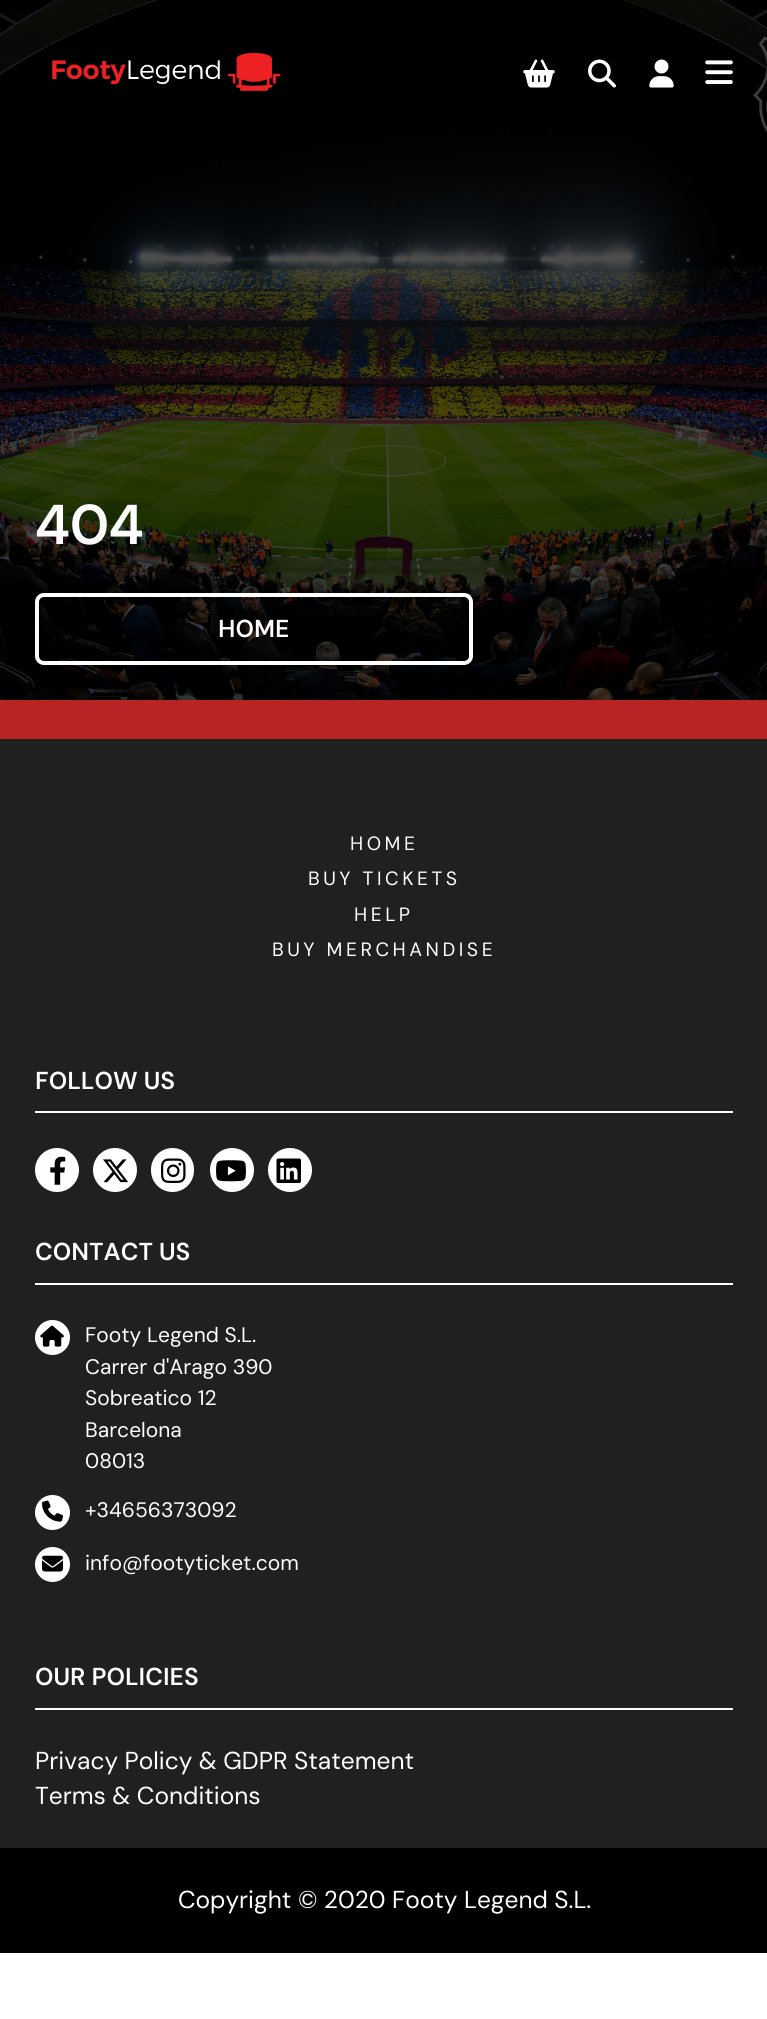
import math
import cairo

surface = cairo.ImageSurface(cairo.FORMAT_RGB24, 767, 2019)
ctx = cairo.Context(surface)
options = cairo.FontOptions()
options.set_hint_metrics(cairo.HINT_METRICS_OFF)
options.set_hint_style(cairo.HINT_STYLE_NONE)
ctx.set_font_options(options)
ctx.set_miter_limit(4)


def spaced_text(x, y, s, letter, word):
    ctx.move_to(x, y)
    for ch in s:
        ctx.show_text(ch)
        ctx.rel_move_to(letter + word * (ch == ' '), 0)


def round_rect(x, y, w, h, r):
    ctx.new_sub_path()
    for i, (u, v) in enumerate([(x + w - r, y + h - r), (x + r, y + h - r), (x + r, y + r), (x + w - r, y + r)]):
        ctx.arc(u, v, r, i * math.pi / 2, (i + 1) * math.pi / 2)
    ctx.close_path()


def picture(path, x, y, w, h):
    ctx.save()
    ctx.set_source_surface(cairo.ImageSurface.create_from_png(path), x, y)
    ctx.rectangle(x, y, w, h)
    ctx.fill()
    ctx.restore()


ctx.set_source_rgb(1, 1, 1)
ctx.paint()
picture("img6.png", 0, 0, 767, 700)
picture("img1.png", 52, 52, 229, 39)
picture("img2.png", 523, 59, 32, 29)
picture("img3.png", 588, 59, 28, 29)
picture("img4.png", 649, 59, 25, 29)
picture("img5.png", 705, 60, 28, 24)
ctx.select_font_face("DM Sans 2 SemiBold")
ctx.set_font_size(56)
ctx.set_source_rgb(1, 1, 1)
ctx.move_to(35, 544)
ctx.show_text("404")
round_rect(37, 595, 434, 68, 7)
ctx.set_line_width(4)
ctx.stroke()
ctx.select_font_face("DM Sans SemiBold")
ctx.set_font_size(24.5)
ctx.move_to(218, 637)
ctx.show_text("HOME")
ctx.set_source_rgb(0.722, 0.141, 0.141)
ctx.rectangle(0, 700, 385, 39)
ctx.fill()
ctx.rectangle(385, 700, 382, 39)
ctx.fill()
ctx.set_source_rgb(0.125, 0.125, 0.125)
ctx.rectangle(0, 739, 767, 1109)
ctx.fill()
ctx.select_font_face("DM Sans 2")
ctx.set_font_size(19.25)
ctx.set_source_rgb(1, 1, 1)
spaced_text(350, 850, "HOME", 3.5, 0)
spaced_text(308, 885, "BUY TICKETS", 3.5, 0)
spaced_text(354, 921, "HELP", 3.5, 0)
spaced_text(272, 956, "BUY MERCHANDISE", 3.5, 0)
ctx.select_font_face("DM Sans SemiBold")
ctx.set_font_size(24.5)
ctx.move_to(35, 1089)
ctx.show_text("FOLLOW US")
ctx.rectangle(35, 1111, 698, 2)
ctx.fill()
ctx.arc(57, 1170, 22, 0, 2 * math.pi)
ctx.fill()
picture("img7.png", 50, 1156, 16, 29)
ctx.arc(115, 1170, 22, 0, 2 * math.pi)
ctx.fill()
picture("img8.png", 103, 1159, 25, 24)
round_rect(151, 1148, 43, 44, 21.5)
ctx.fill()
picture("img9.png", 161, 1158, 25, 25)
ctx.arc(232, 1170, 22, 0, 2 * math.pi)
ctx.fill()
picture("img10.png", 216, 1160, 30, 22)
ctx.arc(290, 1170, 22, 0, 2 * math.pi)
ctx.fill()
picture("img11.png", 276, 1158, 25, 25)
ctx.move_to(35, 1260)
ctx.show_text("CONTACT US")
ctx.rectangle(35, 1283, 698, 2)
ctx.fill()
ctx.arc(52.5, 1337.5, 17.5, 0, 2 * math.pi)
ctx.fill()
picture("img12.png", 40, 1325, 24, 22)
ctx.select_font_face("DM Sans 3")
ctx.set_font_size(21)
ctx.move_to(85, 1342)
ctx.show_text("Footy Legend S.L.")
ctx.move_to(85, 1374)
ctx.show_text("Carrer d'Arago 390")
ctx.move_to(85, 1405)
ctx.show_text("Sobreatico 12")
ctx.move_to(85, 1437)
ctx.show_text("Barcelona")
ctx.move_to(85, 1468)
ctx.show_text("08013")
ctx.new_path()
ctx.arc(52.5, 1512.5, 17.5, 0, 2 * math.pi)
ctx.fill()
picture("img13.png", 42, 1500, 21, 22)
ctx.move_to(85, 1517)
ctx.show_text("+34656373092")
ctx.new_path()
ctx.arc(52.5, 1564.5, 17.5, 0, 2 * math.pi)
ctx.fill()
picture("img14.png", 42, 1555, 21, 17)
ctx.move_to(85, 1570)
ctx.show_text("info@footyticket.com")
ctx.select_font_face("DM Sans SemiBold")
ctx.set_font_size(24.5)
ctx.move_to(35, 1685)
ctx.show_text("OUR POLICIES")
ctx.rectangle(35, 1708, 698, 2)
ctx.fill()
ctx.select_font_face("DM Sans")
ctx.move_to(35, 1769)
ctx.show_text("Privacy Policy & GDPR Statement")
ctx.move_to(35, 1804)
ctx.show_text("Terms & Conditions")
ctx.set_source_rgb(0, 0, 0)
ctx.rectangle(0, 1848, 767, 105)
ctx.fill()
ctx.set_source_rgb(1, 1, 1)
ctx.move_to(178, 1908)
ctx.show_text("Copyright © 2020 Footy Legend S.L.")
surface.write_to_png("page.png")
